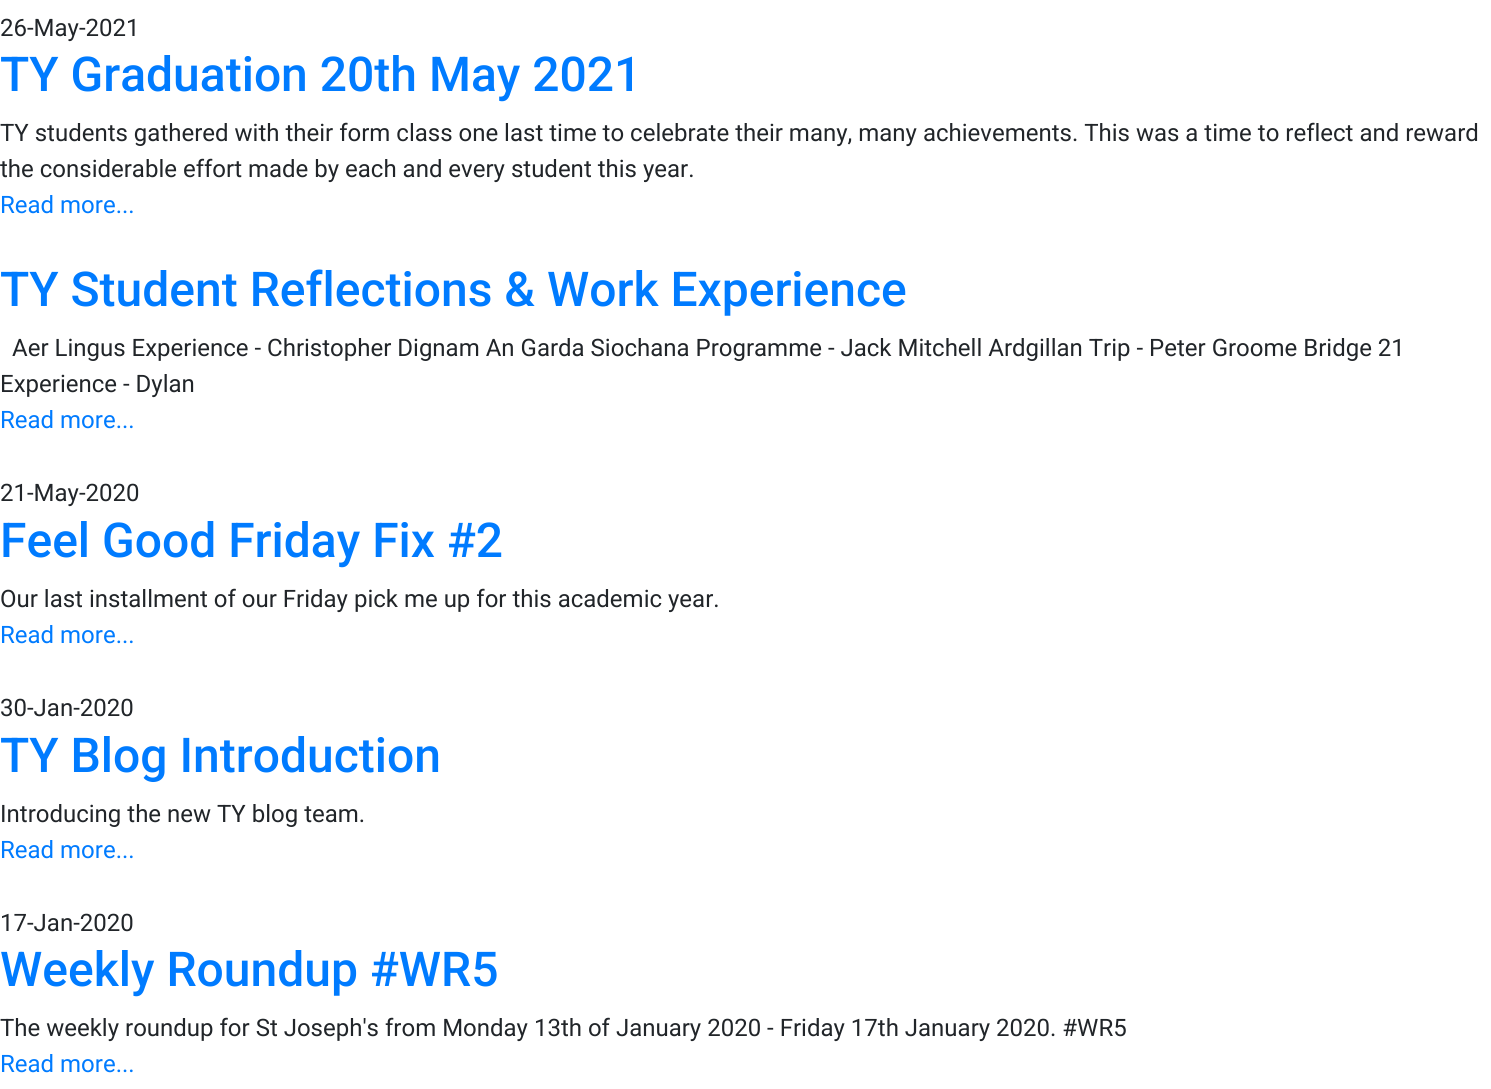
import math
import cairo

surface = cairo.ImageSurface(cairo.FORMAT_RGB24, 1491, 1089)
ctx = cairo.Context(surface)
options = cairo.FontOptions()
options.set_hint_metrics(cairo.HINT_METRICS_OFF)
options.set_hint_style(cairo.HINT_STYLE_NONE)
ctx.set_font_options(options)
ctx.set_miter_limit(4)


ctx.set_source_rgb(1, 1, 1)
ctx.paint()
ctx.select_font_face("Roboto")
ctx.set_font_size(24)
ctx.set_source_rgb(0.129, 0.145, 0.161)
ctx.move_to(0, 36)
ctx.show_text("26-May-2021")
ctx.select_font_face("Roboto Medium")
ctx.set_font_size(48)
ctx.set_source_rgb(0, 0.482, 1)
ctx.move_to(0, 91)
ctx.show_text("TY Graduation 20th May 2021")
ctx.select_font_face("Roboto")
ctx.set_font_size(24)
ctx.set_source_rgb(0.129, 0.145, 0.161)
ctx.move_to(0, 141)
ctx.show_text("TY students gathered with their form class one last time to celebrate their many, many achievements. This was a time to reflect and reward")
ctx.move_to(0, 177)
ctx.show_text("the considerable effort made by each and every student this year.")
ctx.set_source_rgb(0, 0.482, 1)
ctx.move_to(0, 213)
ctx.show_text("Read more...")
ctx.select_font_face("Roboto Medium")
ctx.set_font_size(48)
ctx.move_to(0, 306)
ctx.show_text("TY Student Reflections & Work Experience")
ctx.select_font_face("Roboto")
ctx.set_font_size(24)
ctx.set_source_rgb(0.129, 0.145, 0.161)
ctx.move_to(12, 356)
ctx.show_text("Aer Lingus Experience - Christopher Dignam An Garda Siochana Programme - Jack Mitchell Ardgillan Trip - Peter Groome Bridge 21")
ctx.move_to(0, 392)
ctx.show_text("Experience - Dylan")
ctx.set_source_rgb(0, 0.482, 1)
ctx.move_to(0, 428)
ctx.show_text("Read more...")
ctx.set_source_rgb(0.129, 0.145, 0.161)
ctx.move_to(0, 501)
ctx.show_text("21-May-2020")
ctx.select_font_face("Roboto Medium")
ctx.set_font_size(48)
ctx.set_source_rgb(0, 0.482, 1)
ctx.move_to(0, 557)
ctx.show_text("Feel Good Friday Fix #2")
ctx.select_font_face("Roboto")
ctx.set_font_size(24)
ctx.set_source_rgb(0.129, 0.145, 0.161)
ctx.move_to(0, 607)
ctx.show_text("Our last installment of our Friday pick me up for this academic year.")
ctx.set_source_rgb(0, 0.482, 1)
ctx.move_to(0, 643)
ctx.show_text("Read more...")
ctx.set_source_rgb(0.129, 0.145, 0.161)
ctx.move_to(0, 716)
ctx.show_text("30-Jan-2020")
ctx.select_font_face("Roboto Medium")
ctx.set_font_size(48)
ctx.set_source_rgb(0, 0.482, 1)
ctx.move_to(0, 772)
ctx.show_text("TY Blog Introduction")
ctx.select_font_face("Roboto")
ctx.set_font_size(24)
ctx.set_source_rgb(0.129, 0.145, 0.161)
ctx.move_to(0, 822)
ctx.show_text("Introducing the new TY blog team.")
ctx.set_source_rgb(0, 0.482, 1)
ctx.move_to(0, 858)
ctx.show_text("Read more...")
ctx.set_source_rgb(0.129, 0.145, 0.161)
ctx.move_to(0, 931)
ctx.show_text("17-Jan-2020")
ctx.select_font_face("Roboto Medium")
ctx.set_font_size(48)
ctx.set_source_rgb(0, 0.482, 1)
ctx.move_to(0, 986)
ctx.show_text("Weekly Roundup #WR5")
ctx.select_font_face("Roboto")
ctx.set_font_size(24)
ctx.set_source_rgb(0.129, 0.145, 0.161)
ctx.move_to(0, 1036)
ctx.show_text("The weekly roundup for St Joseph's from Monday 13th of January 2020 - Friday 17th January 2020. #WR5")
ctx.set_source_rgb(0, 0.482, 1)
ctx.move_to(0, 1072)
ctx.show_text("Read more...")
surface.write_to_png("page.png")
